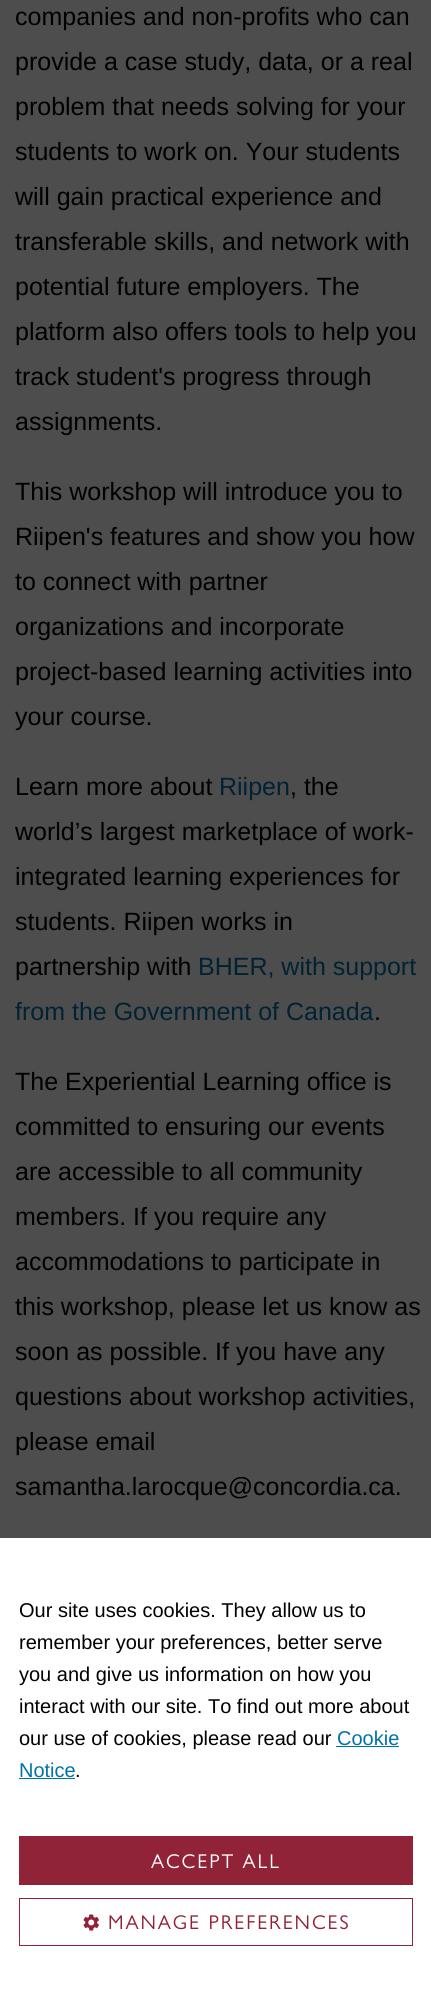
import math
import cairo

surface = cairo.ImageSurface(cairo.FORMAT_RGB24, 431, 2015)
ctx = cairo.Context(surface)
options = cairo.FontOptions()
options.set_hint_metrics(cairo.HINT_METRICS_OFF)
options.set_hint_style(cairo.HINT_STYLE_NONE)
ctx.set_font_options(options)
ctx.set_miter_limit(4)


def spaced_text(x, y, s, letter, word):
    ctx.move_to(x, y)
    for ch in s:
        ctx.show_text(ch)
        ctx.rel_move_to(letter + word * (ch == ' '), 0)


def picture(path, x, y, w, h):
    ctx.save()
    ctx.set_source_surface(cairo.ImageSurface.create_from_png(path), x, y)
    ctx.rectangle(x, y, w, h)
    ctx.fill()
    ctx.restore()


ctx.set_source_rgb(0.302, 0.302, 0.302)
ctx.paint()
ctx.select_font_face("Liberation Sans")
ctx.set_font_size(25)
ctx.set_source_rgb(0, 0, 0)
ctx.move_to(15, 25)
ctx.show_text("companies and non-profits who can")
ctx.move_to(15, 70)
ctx.show_text("provide a case study, data, or a real")
ctx.move_to(15, 115)
ctx.show_text("problem that needs solving for your")
ctx.move_to(15, 160)
ctx.show_text("students to work on. Your students")
ctx.move_to(15, 205)
ctx.show_text("will gain practical experience and")
ctx.move_to(15, 250)
ctx.show_text("transferable skills, and network with")
ctx.move_to(15, 295)
ctx.show_text("potential future employers. The")
ctx.move_to(15, 340)
ctx.show_text("platform also offers tools to help you")
ctx.move_to(15, 385)
ctx.show_text("track student's progress through")
ctx.move_to(15, 430)
ctx.show_text("assignments.")
ctx.move_to(15, 500)
ctx.show_text("This workshop will introduce you to")
ctx.move_to(15, 545)
ctx.show_text("Riipen's features and show you how")
ctx.move_to(15, 590)
ctx.show_text("to connect with partner")
ctx.move_to(15, 635)
ctx.show_text("organizations and incorporate")
ctx.move_to(15, 680)
ctx.show_text("project-based learning activities into")
ctx.move_to(15, 725)
ctx.show_text("your course.")
ctx.move_to(15, 795)
ctx.show_text("Learn more about")
ctx.set_source_rgb(0, 0.133, 0.196)
ctx.move_to(219, 795)
ctx.show_text("Riipen")
ctx.set_source_rgb(0, 0, 0)
ctx.move_to(290, 795)
ctx.show_text(", the")
ctx.move_to(15, 840)
ctx.show_text("world’s largest marketplace of work-")
ctx.move_to(15, 885)
ctx.show_text("integrated learning experiences for")
ctx.move_to(15, 930)
ctx.show_text("students. Riipen works in")
ctx.move_to(15, 975)
ctx.show_text("partnership with")
ctx.set_source_rgb(0, 0.133, 0.196)
ctx.move_to(198, 975)
ctx.show_text("BHER, with support")
ctx.move_to(15, 1020)
ctx.show_text("from the Government of Canada")
ctx.set_source_rgb(0, 0, 0)
ctx.move_to(374, 1020)
ctx.show_text(".")
ctx.move_to(15, 1090)
ctx.show_text("The Experiential Learning office is")
ctx.move_to(15, 1135)
ctx.show_text("committed to ensuring our events")
ctx.move_to(15, 1180)
ctx.show_text("are accessible to all community")
ctx.move_to(15, 1225)
ctx.show_text("members. If you require any")
ctx.move_to(15, 1270)
ctx.show_text("accommodations to participate in")
ctx.move_to(15, 1315)
ctx.show_text("this workshop, please let us know as")
ctx.move_to(15, 1360)
ctx.show_text("soon as possible. If you have any")
ctx.move_to(15, 1405)
ctx.show_text("questions about workshop activities,")
ctx.move_to(15, 1450)
ctx.show_text("please email")
ctx.move_to(15, 1495)
ctx.show_text("samantha.larocque@concordia.ca.")
ctx.set_source_rgb(1, 1, 1)
ctx.rectangle(0, 1538, 431, 477)
ctx.fill()
ctx.set_font_size(20)
ctx.set_source_rgb(0, 0, 0)
ctx.move_to(19, 1617)
ctx.show_text("Our site uses cookies. They allow us to")
ctx.move_to(19, 1649)
ctx.show_text("remember your preferences, better serve")
ctx.move_to(19, 1681)
ctx.show_text("you and give us information on how you")
ctx.move_to(19, 1713)
ctx.show_text("interact with our site. To find out more about")
ctx.move_to(19, 1745)
ctx.show_text("our use of cookies, please read our")
ctx.set_source_rgb(0, 0.447, 0.659)
ctx.move_to(337, 1745)
ctx.show_text("Cookie")
ctx.rectangle(336, 1746, 63, 1)
ctx.fill()
ctx.move_to(19, 1777)
ctx.show_text("Notice")
ctx.rectangle(19, 1778, 56, 1)
ctx.fill()
ctx.set_source_rgb(0, 0, 0)
ctx.move_to(75, 1777)
ctx.show_text(".")
ctx.set_source_rgb(0.569, 0.137, 0.22)
ctx.rectangle(19, 1836, 394, 49)
ctx.fill()
ctx.select_font_face("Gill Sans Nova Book")
ctx.set_source_rgb(1, 1, 1)
spaced_text(151, 1868, "ACCEPT ALL", 1.9, 0)
ctx.rectangle(19.5, 1898.5, 393, 47)
ctx.set_source_rgb(0.569, 0.137, 0.22)
ctx.set_line_width(1)
ctx.stroke()
picture("img1.png", 83, 1914, 16, 17)
spaced_text(108, 1929, "MANAGE PREFERENCES", 1.9, 0)
surface.write_to_png("page.png")
